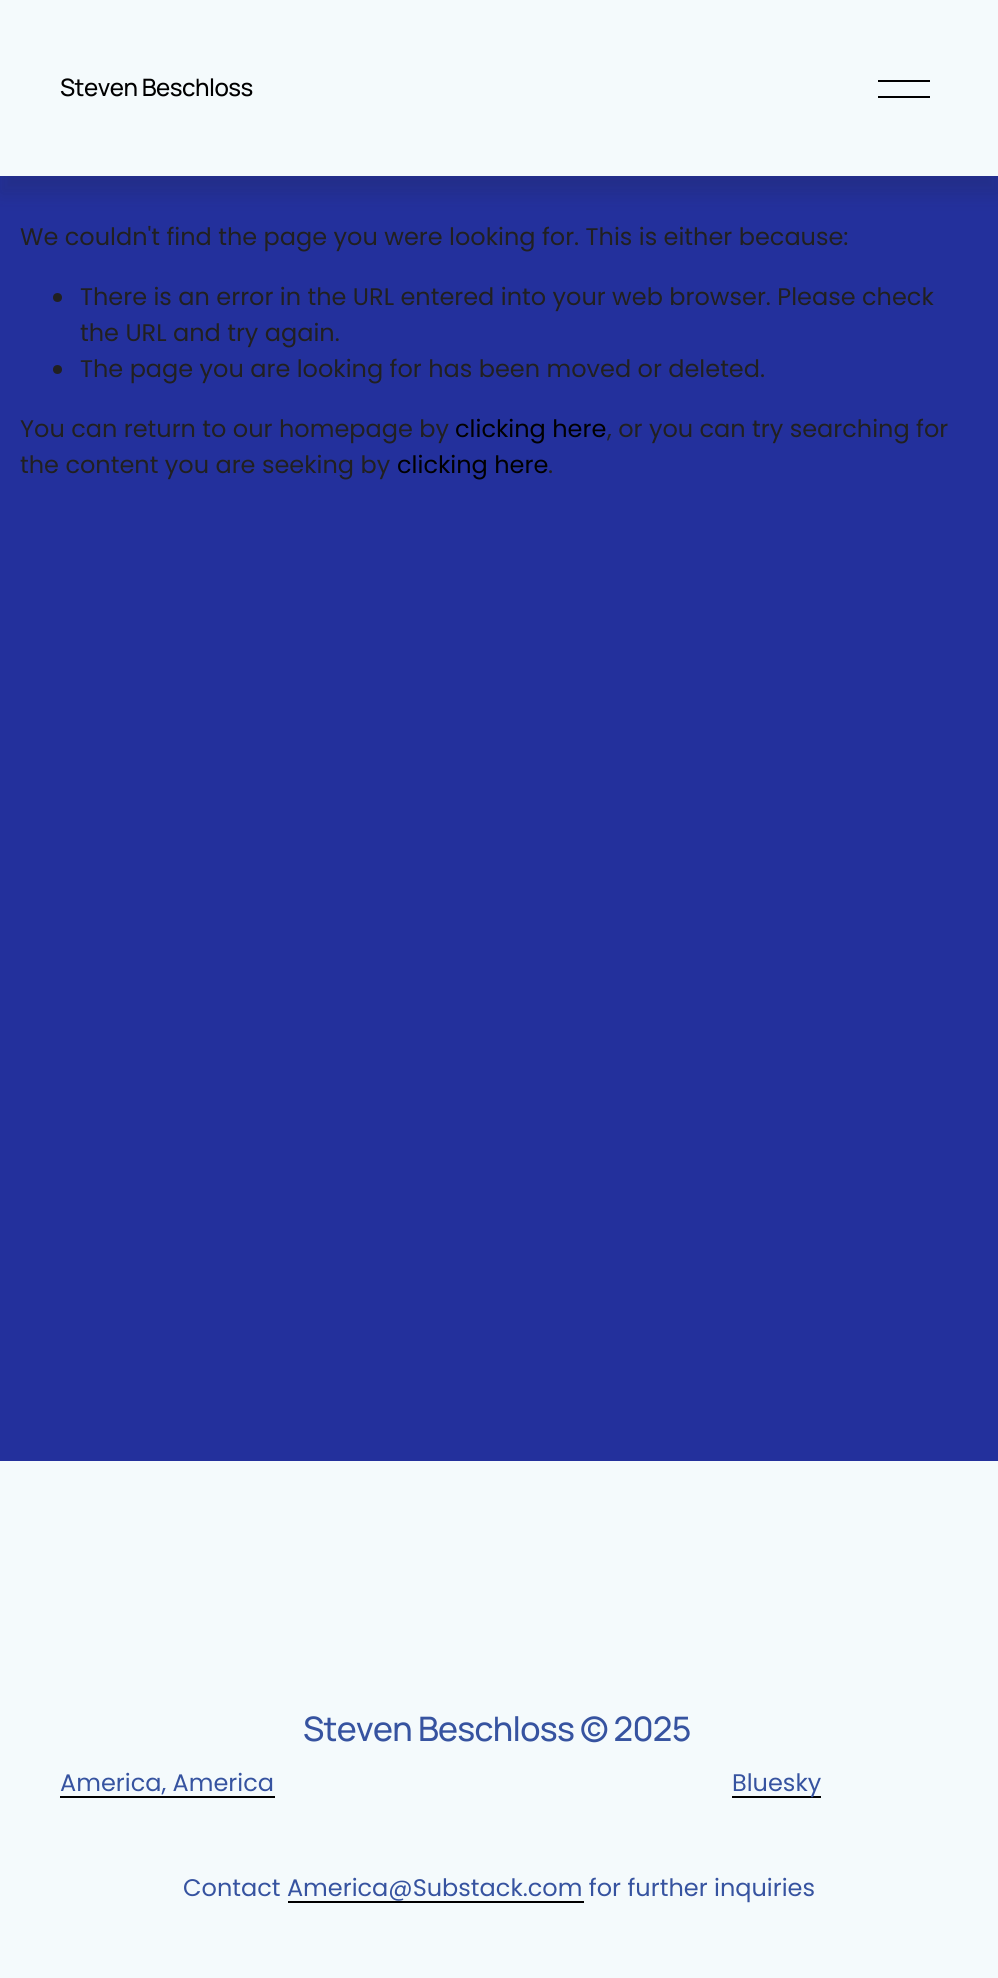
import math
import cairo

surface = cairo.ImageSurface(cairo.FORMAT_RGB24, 998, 1978)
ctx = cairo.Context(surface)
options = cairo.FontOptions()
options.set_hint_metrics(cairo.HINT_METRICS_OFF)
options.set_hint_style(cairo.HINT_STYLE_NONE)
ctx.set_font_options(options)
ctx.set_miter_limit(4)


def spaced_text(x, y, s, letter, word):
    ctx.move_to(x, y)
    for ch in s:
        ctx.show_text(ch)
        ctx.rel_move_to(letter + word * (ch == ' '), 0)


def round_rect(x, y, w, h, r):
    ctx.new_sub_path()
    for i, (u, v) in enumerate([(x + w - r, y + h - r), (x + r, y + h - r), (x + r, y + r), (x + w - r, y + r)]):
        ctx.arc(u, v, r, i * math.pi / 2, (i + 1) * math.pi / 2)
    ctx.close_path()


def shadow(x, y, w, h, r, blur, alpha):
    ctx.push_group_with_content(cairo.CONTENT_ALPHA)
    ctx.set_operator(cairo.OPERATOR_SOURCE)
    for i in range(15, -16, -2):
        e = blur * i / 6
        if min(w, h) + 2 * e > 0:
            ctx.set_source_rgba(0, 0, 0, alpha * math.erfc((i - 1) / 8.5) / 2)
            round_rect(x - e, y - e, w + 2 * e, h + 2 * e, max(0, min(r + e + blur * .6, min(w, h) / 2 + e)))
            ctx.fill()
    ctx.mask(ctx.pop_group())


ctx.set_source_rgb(0.137, 0.188, 0.612)
ctx.paint()
ctx.set_source_rgb(0.957, 0.98, 0.988)
ctx.rectangle(0, 0, 998, 176)
ctx.fill()
ctx.save()
ctx.set_fill_rule(cairo.FILL_RULE_EVEN_ODD)
ctx.new_path()
ctx.move_to(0, 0)
ctx.line_to(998, 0)
ctx.line_to(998, 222)
ctx.line_to(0, 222)
ctx.close_path()
ctx.move_to(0, 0)
ctx.line_to(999, 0)
ctx.line_to(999, 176)
ctx.line_to(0, 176)
ctx.close_path()
ctx.clip()
ctx.set_source_rgb(0.129, 0.125, 0.125)
shadow(0, 18, 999, 176, 0, 9, 0.15)
ctx.restore()
ctx.select_font_face("Manrope Medium")
ctx.set_font_size(24)
ctx.set_source_rgb(0, 0, 0)
spaced_text(60, 96, "Steven Beschloss", -0.5, 0)
ctx.rectangle(878, 80, 52, 2)
ctx.fill()
ctx.rectangle(878, 96, 52, 2)
ctx.fill()
ctx.select_font_face("Poppins")
ctx.set_source_rgb(0.129, 0.125, 0.125)
ctx.move_to(20, 245)
ctx.show_text("We couldn't find the page you were looking for. This is either because:")
ctx.new_path()
ctx.arc(57.5, 297.5, 4.5, 0, 2 * math.pi)
ctx.fill()
ctx.move_to(80, 305)
ctx.show_text("There is an error in the URL entered into your web browser. Please check")
ctx.move_to(80, 341)
ctx.show_text("the URL and try again.")
ctx.new_path()
ctx.arc(57.5, 369.5, 4.5, 0, 2 * math.pi)
ctx.fill()
ctx.move_to(80, 377)
ctx.show_text("The page you are looking for has been moved or deleted.")
ctx.move_to(20, 437)
ctx.show_text("You can return to our homepage by")
ctx.set_source_rgb(0, 0, 0)
ctx.move_to(455, 437)
ctx.show_text("clicking here")
ctx.set_source_rgb(0.129, 0.125, 0.125)
ctx.move_to(607, 437)
ctx.show_text(", or you can try searching for")
ctx.move_to(20, 473)
ctx.show_text("the content you are seeking by")
ctx.set_source_rgb(0, 0, 0)
ctx.move_to(397, 473)
ctx.show_text("clicking here")
ctx.set_source_rgb(0.129, 0.125, 0.125)
ctx.move_to(548, 473)
ctx.show_text(".")
ctx.set_source_rgb(0.957, 0.98, 0.988)
ctx.rectangle(0, 1461, 998, 517)
ctx.fill()
ctx.select_font_face("Manrope Medium")
ctx.set_font_size(33.75)
ctx.set_source_rgb(0.212, 0.325, 0.627)
spaced_text(303, 1741, "Steven Beschloss © 2025", -0.7, 0)
ctx.select_font_face("Poppins")
ctx.set_font_size(24)
ctx.move_to(60, 1791)
ctx.show_text("America, America")
ctx.set_source_rgb(0, 0, 0)
ctx.rectangle(60, 1796, 215, 2)
ctx.fill()
ctx.rectangle(732, 1796, 89, 2)
ctx.fill()
ctx.set_source_rgb(0.212, 0.325, 0.627)
ctx.move_to(732, 1791)
ctx.show_text("Bluesky")
ctx.move_to(183, 1896)
ctx.show_text("Contact America@Substack.com for further inquiries")
ctx.set_source_rgb(0, 0, 0)
ctx.rectangle(288, 1901, 296, 2)
ctx.fill()
surface.write_to_png("page.png")
